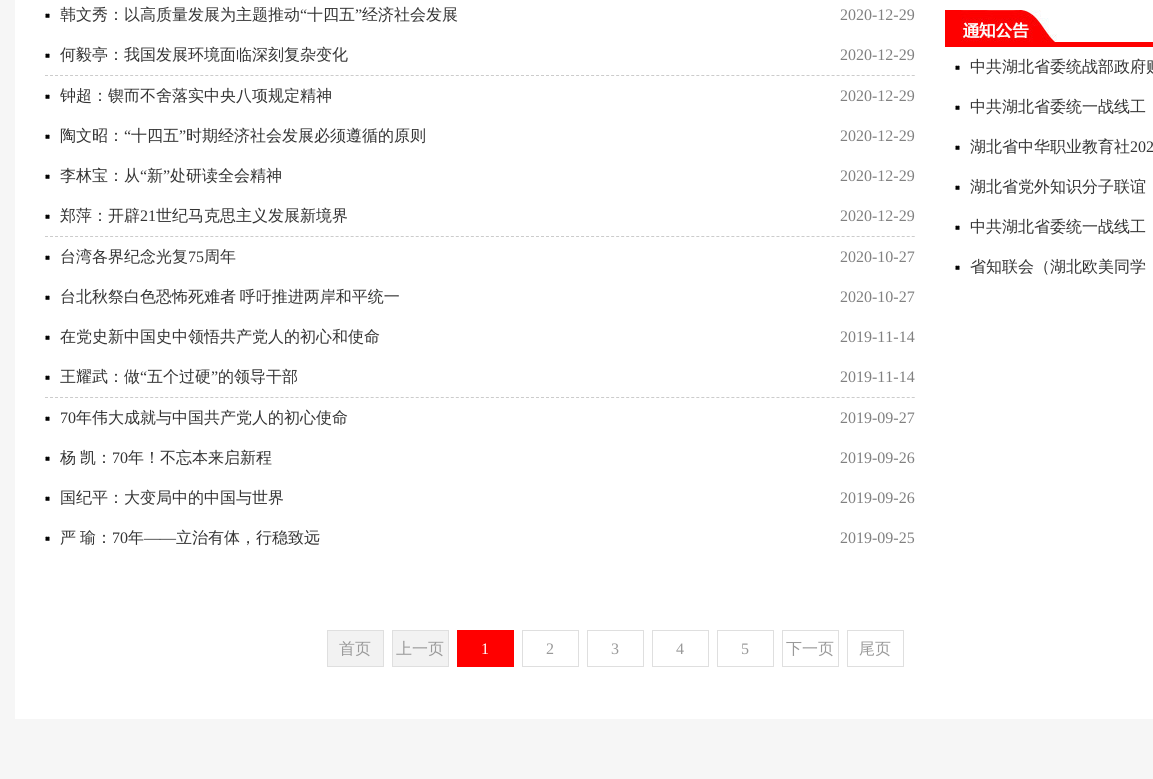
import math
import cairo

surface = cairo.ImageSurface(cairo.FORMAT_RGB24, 1153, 779)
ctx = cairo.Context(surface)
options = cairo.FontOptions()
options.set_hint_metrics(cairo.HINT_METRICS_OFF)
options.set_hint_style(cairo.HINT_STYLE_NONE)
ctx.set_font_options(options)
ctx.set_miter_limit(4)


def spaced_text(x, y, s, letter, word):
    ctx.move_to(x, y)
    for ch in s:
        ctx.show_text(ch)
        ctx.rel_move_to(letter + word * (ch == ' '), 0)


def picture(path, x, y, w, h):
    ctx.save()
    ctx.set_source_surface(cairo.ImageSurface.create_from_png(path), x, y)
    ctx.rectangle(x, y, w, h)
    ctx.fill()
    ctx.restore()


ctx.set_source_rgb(0.961, 0.961, 0.961)
ctx.paint()
ctx.set_source_rgb(1, 1, 1)
ctx.rectangle(15, 0, 1138, 719)
ctx.fill()
picture("img1.png", 45, 13, 5, 5)
ctx.select_font_face("WenQuanYi Zen Hei Medium")
ctx.set_font_size(16)
ctx.set_source_rgb(0.2, 0.2, 0.2)
ctx.move_to(60, 20)
ctx.show_text("韩文秀：以高质量发展为主题推动")
ctx.select_font_face("Liberation Serif")
ctx.move_to(300, 20)
ctx.show_text("“")
ctx.select_font_face("WenQuanYi Zen Hei Medium")
ctx.move_to(307, 20)
ctx.show_text("十四五")
ctx.select_font_face("Liberation Serif")
ctx.move_to(355, 20)
ctx.show_text("”")
ctx.select_font_face("WenQuanYi Zen Hei Medium")
ctx.move_to(362, 20)
ctx.show_text("经济社会发展")
ctx.select_font_face("Liberation Serif")
ctx.set_source_rgb(0.502, 0.502, 0.502)
ctx.move_to(840, 20)
ctx.show_text("2020-12-29")
picture("img1.png", 45, 53, 5, 5)
ctx.new_path()
ctx.move_to(45, 75.5)
ctx.line_to(915, 75.5)
ctx.set_source_rgb(0.8, 0.8, 0.8)
ctx.set_line_width(1)
ctx.set_dash([3, 2.01])
ctx.stroke()
ctx.select_font_face("WenQuanYi Zen Hei Medium")
ctx.set_source_rgb(0.2, 0.2, 0.2)
ctx.move_to(60, 60)
ctx.show_text("何毅亭：我国发展环境面临深刻复杂变化")
ctx.select_font_face("Liberation Serif")
ctx.set_source_rgb(0.502, 0.502, 0.502)
ctx.move_to(840, 60)
ctx.show_text("2020-12-29")
picture("img1.png", 45, 94, 5, 5)
ctx.select_font_face("WenQuanYi Zen Hei Medium")
ctx.set_source_rgb(0.2, 0.2, 0.2)
ctx.move_to(60, 101)
ctx.show_text("钟超：锲而不舍落实中央八项规定精神")
ctx.select_font_face("Liberation Serif")
ctx.set_source_rgb(0.502, 0.502, 0.502)
ctx.move_to(840, 101)
ctx.show_text("2020-12-29")
picture("img1.png", 45, 134, 5, 5)
ctx.select_font_face("WenQuanYi Zen Hei Medium")
ctx.set_source_rgb(0.2, 0.2, 0.2)
ctx.move_to(60, 141)
ctx.show_text("陶文昭：")
ctx.select_font_face("Liberation Serif")
ctx.move_to(124, 141)
ctx.show_text("“")
ctx.select_font_face("WenQuanYi Zen Hei Medium")
ctx.move_to(131, 141)
ctx.show_text("十四五")
ctx.select_font_face("Liberation Serif")
ctx.move_to(179, 141)
ctx.show_text("”")
ctx.select_font_face("WenQuanYi Zen Hei Medium")
ctx.move_to(186, 141)
ctx.show_text("时期经济社会发展必须遵循的原则")
ctx.select_font_face("Liberation Serif")
ctx.set_source_rgb(0.502, 0.502, 0.502)
ctx.move_to(840, 141)
ctx.show_text("2020-12-29")
picture("img1.png", 45, 174, 5, 5)
ctx.select_font_face("WenQuanYi Zen Hei Medium")
ctx.set_source_rgb(0.2, 0.2, 0.2)
ctx.move_to(60, 181)
ctx.show_text("李林宝：从")
ctx.select_font_face("Liberation Serif")
ctx.move_to(140, 181)
ctx.show_text("“")
ctx.select_font_face("WenQuanYi Zen Hei Medium")
ctx.move_to(147, 181)
ctx.show_text("新")
ctx.select_font_face("Liberation Serif")
ctx.move_to(163, 181)
ctx.show_text("”")
ctx.select_font_face("WenQuanYi Zen Hei Medium")
ctx.move_to(170, 181)
ctx.show_text("处研读全会精神")
ctx.select_font_face("Liberation Serif")
ctx.set_source_rgb(0.502, 0.502, 0.502)
ctx.move_to(840, 181)
ctx.show_text("2020-12-29")
picture("img1.png", 45, 214, 5, 5)
ctx.new_path()
ctx.move_to(45, 236.5)
ctx.line_to(915, 236.5)
ctx.set_source_rgb(0.8, 0.8, 0.8)
ctx.stroke()
ctx.select_font_face("WenQuanYi Zen Hei Medium")
ctx.set_source_rgb(0.2, 0.2, 0.2)
ctx.move_to(60, 221)
ctx.show_text("郑萍：开辟")
ctx.select_font_face("Liberation Serif")
ctx.move_to(140, 221)
ctx.show_text("21")
ctx.select_font_face("WenQuanYi Zen Hei Medium")
ctx.move_to(156, 221)
ctx.show_text("世纪马克思主义发展新境界")
ctx.select_font_face("Liberation Serif")
ctx.set_source_rgb(0.502, 0.502, 0.502)
ctx.move_to(840, 221)
ctx.show_text("2020-12-29")
picture("img1.png", 45, 255, 5, 5)
ctx.select_font_face("WenQuanYi Zen Hei Medium")
ctx.set_source_rgb(0.2, 0.2, 0.2)
ctx.move_to(60, 262)
ctx.show_text("台湾各界纪念光复")
ctx.select_font_face("Liberation Serif")
ctx.move_to(188, 262)
ctx.show_text("75")
ctx.select_font_face("WenQuanYi Zen Hei Medium")
ctx.move_to(204, 262)
ctx.show_text("周年")
ctx.select_font_face("Liberation Serif")
ctx.set_source_rgb(0.502, 0.502, 0.502)
ctx.move_to(840, 262)
ctx.show_text("2020-10-27")
picture("img1.png", 45, 295, 5, 5)
ctx.select_font_face("WenQuanYi Zen Hei Medium")
ctx.set_source_rgb(0.2, 0.2, 0.2)
spaced_text(60, 302, "台北秋祭白色恐怖死难者 呼吁推进两岸和平统一", 0, -1)
ctx.select_font_face("Liberation Serif")
ctx.set_source_rgb(0.502, 0.502, 0.502)
ctx.move_to(840, 302)
ctx.show_text("2020-10-27")
picture("img1.png", 45, 335, 5, 5)
ctx.select_font_face("WenQuanYi Zen Hei Medium")
ctx.set_source_rgb(0.2, 0.2, 0.2)
ctx.move_to(60, 342)
ctx.show_text("在党史新中国史中领悟共产党人的初心和使命")
ctx.select_font_face("Liberation Serif")
ctx.set_source_rgb(0.502, 0.502, 0.502)
ctx.move_to(840, 342)
ctx.show_text("2019-11-14")
picture("img1.png", 45, 375, 5, 5)
ctx.new_path()
ctx.move_to(45, 397.5)
ctx.line_to(915, 397.5)
ctx.set_source_rgb(0.8, 0.8, 0.8)
ctx.stroke()
ctx.select_font_face("WenQuanYi Zen Hei Medium")
ctx.set_source_rgb(0.2, 0.2, 0.2)
ctx.move_to(60, 382)
ctx.show_text("王耀武：做")
ctx.select_font_face("Liberation Serif")
ctx.move_to(140, 382)
ctx.show_text("“")
ctx.select_font_face("WenQuanYi Zen Hei Medium")
ctx.move_to(147, 382)
ctx.show_text("五个过硬")
ctx.select_font_face("Liberation Serif")
ctx.move_to(211, 382)
ctx.show_text("”")
ctx.select_font_face("WenQuanYi Zen Hei Medium")
ctx.move_to(218, 382)
ctx.show_text("的领导干部")
ctx.select_font_face("Liberation Serif")
ctx.set_source_rgb(0.502, 0.502, 0.502)
ctx.move_to(840, 382)
ctx.show_text("2019-11-14")
picture("img1.png", 45, 416, 5, 5)
ctx.set_source_rgb(0.2, 0.2, 0.2)
ctx.move_to(60, 423)
ctx.show_text("70")
ctx.select_font_face("WenQuanYi Zen Hei Medium")
ctx.move_to(76, 423)
ctx.show_text("年伟大成就与中国共产党人的初心使命")
ctx.select_font_face("Liberation Serif")
ctx.set_source_rgb(0.502, 0.502, 0.502)
ctx.move_to(840, 423)
ctx.show_text("2019-09-27")
picture("img1.png", 45, 456, 5, 5)
ctx.select_font_face("WenQuanYi Zen Hei Medium")
ctx.set_source_rgb(0.2, 0.2, 0.2)
ctx.move_to(60, 463)
ctx.show_text("杨")
ctx.move_to(80, 463)
ctx.show_text("凯：")
ctx.select_font_face("Liberation Serif")
ctx.move_to(112, 463)
ctx.show_text("70")
ctx.select_font_face("WenQuanYi Zen Hei Medium")
ctx.move_to(128, 463)
ctx.show_text("年！不忘本来启新程")
ctx.select_font_face("Liberation Serif")
ctx.set_source_rgb(0.502, 0.502, 0.502)
ctx.move_to(840, 463)
ctx.show_text("2019-09-26")
picture("img1.png", 45, 496, 5, 5)
ctx.select_font_face("WenQuanYi Zen Hei Medium")
ctx.set_source_rgb(0.2, 0.2, 0.2)
ctx.move_to(60, 503)
ctx.show_text("国纪平：大变局中的中国与世界")
ctx.select_font_face("Liberation Serif")
ctx.set_source_rgb(0.502, 0.502, 0.502)
ctx.move_to(840, 503)
ctx.show_text("2019-09-26")
picture("img1.png", 45, 536, 5, 5)
ctx.select_font_face("WenQuanYi Zen Hei Medium")
ctx.set_source_rgb(0.2, 0.2, 0.2)
ctx.move_to(60, 543)
ctx.show_text("严")
ctx.move_to(80, 543)
ctx.show_text("瑜：")
ctx.select_font_face("Liberation Serif")
ctx.move_to(112, 543)
ctx.show_text("70")
ctx.select_font_face("WenQuanYi Zen Hei Medium")
ctx.move_to(128, 543)
ctx.show_text("年")
ctx.select_font_face("Liberation Serif")
ctx.move_to(144, 543)
ctx.show_text("——")
ctx.select_font_face("WenQuanYi Zen Hei Medium")
ctx.move_to(176, 543)
ctx.show_text("立治有体，行稳致远")
ctx.select_font_face("Liberation Serif")
ctx.set_source_rgb(0.502, 0.502, 0.502)
ctx.move_to(840, 543)
ctx.show_text("2019-09-25")
picture("img2.png", 945, 10, 208, 37)
picture("img1.png", 955, 65, 5, 5)
ctx.select_font_face("WenQuanYi Zen Hei Medium")
ctx.set_source_rgb(0.2, 0.2, 0.2)
ctx.move_to(970, 72)
ctx.show_text("中共湖北省委统战部政府购")
picture("img1.png", 955, 105, 5, 5)
ctx.move_to(970, 112)
ctx.show_text("中共湖北省委统一战线工")
picture("img1.png", 955, 145, 5, 5)
ctx.move_to(970, 152)
ctx.show_text("湖北省中华职业教育社")
ctx.select_font_face("Liberation Serif")
ctx.move_to(1130, 152)
ctx.show_text("202")
picture("img1.png", 955, 185, 5, 5)
ctx.select_font_face("WenQuanYi Zen Hei Medium")
ctx.move_to(970, 192)
ctx.show_text("湖北省党外知识分子联谊")
picture("img1.png", 955, 225, 5, 5)
ctx.move_to(970, 232)
ctx.show_text("中共湖北省委统一战线工")
picture("img1.png", 955, 265, 5, 5)
ctx.move_to(970, 272)
ctx.show_text("省知联会（湖北欧美同学")
ctx.set_source_rgb(0.949, 0.949, 0.949)
ctx.rectangle(327.5, 630.5, 56, 36)
ctx.fill_preserve()
ctx.set_source_rgb(0.875, 0.875, 0.875)
ctx.set_dash([])
ctx.stroke()
ctx.set_source_rgb(0.6, 0.6, 0.6)
ctx.move_to(339, 654)
ctx.show_text("首页")
ctx.set_source_rgb(0.949, 0.949, 0.949)
ctx.rectangle(392.5, 630.5, 56, 36)
ctx.fill_preserve()
ctx.set_source_rgb(0.875, 0.875, 0.875)
ctx.stroke()
ctx.set_source_rgb(0.6, 0.6, 0.6)
ctx.move_to(396, 654)
ctx.show_text("上一页")
ctx.set_source_rgb(1, 0, 0)
ctx.rectangle(457, 630, 57, 37)
ctx.fill()
ctx.select_font_face("Liberation Serif")
ctx.set_source_rgb(1, 1, 1)
ctx.move_to(481, 654)
ctx.show_text("1")
ctx.rectangle(522.5, 630.5, 56, 36)
ctx.set_source_rgb(0.875, 0.875, 0.875)
ctx.stroke()
ctx.set_source_rgb(0.6, 0.6, 0.6)
ctx.move_to(546, 654)
ctx.show_text("2")
ctx.rectangle(587.5, 630.5, 56, 36)
ctx.set_source_rgb(0.875, 0.875, 0.875)
ctx.stroke()
ctx.set_source_rgb(0.6, 0.6, 0.6)
ctx.move_to(611, 654)
ctx.show_text("3")
ctx.rectangle(652.5, 630.5, 56, 36)
ctx.set_source_rgb(0.875, 0.875, 0.875)
ctx.stroke()
ctx.set_source_rgb(0.6, 0.6, 0.6)
ctx.move_to(676, 654)
ctx.show_text("4")
ctx.rectangle(717.5, 630.5, 56, 36)
ctx.set_source_rgb(0.875, 0.875, 0.875)
ctx.stroke()
ctx.set_source_rgb(0.6, 0.6, 0.6)
ctx.move_to(741, 654)
ctx.show_text("5")
ctx.rectangle(782.5, 630.5, 56, 36)
ctx.set_source_rgb(0.875, 0.875, 0.875)
ctx.stroke()
ctx.select_font_face("WenQuanYi Zen Hei Medium")
ctx.set_source_rgb(0.6, 0.6, 0.6)
ctx.move_to(786, 654)
ctx.show_text("下一页")
ctx.rectangle(847.5, 630.5, 56, 36)
ctx.set_source_rgb(0.875, 0.875, 0.875)
ctx.stroke()
ctx.set_source_rgb(0.6, 0.6, 0.6)
ctx.move_to(859, 654)
ctx.show_text("尾页")
surface.write_to_png("page.png")
